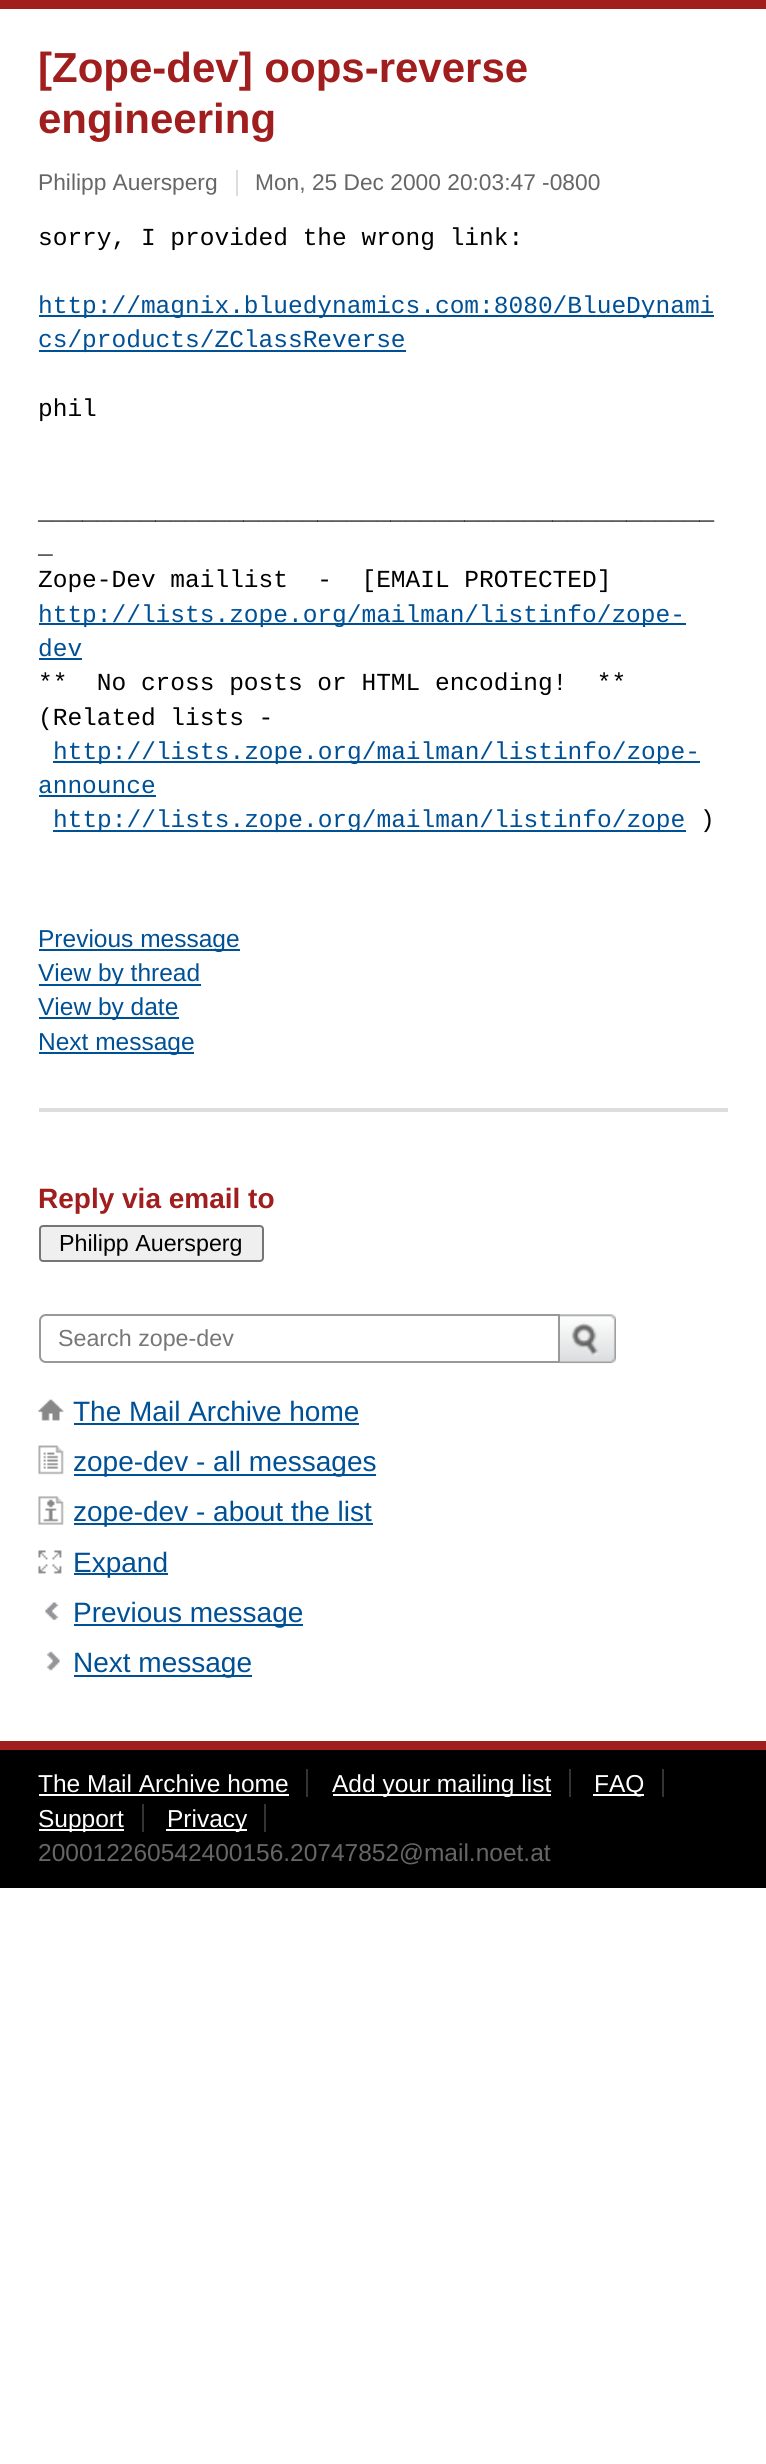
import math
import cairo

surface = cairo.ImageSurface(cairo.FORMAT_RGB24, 766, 2464)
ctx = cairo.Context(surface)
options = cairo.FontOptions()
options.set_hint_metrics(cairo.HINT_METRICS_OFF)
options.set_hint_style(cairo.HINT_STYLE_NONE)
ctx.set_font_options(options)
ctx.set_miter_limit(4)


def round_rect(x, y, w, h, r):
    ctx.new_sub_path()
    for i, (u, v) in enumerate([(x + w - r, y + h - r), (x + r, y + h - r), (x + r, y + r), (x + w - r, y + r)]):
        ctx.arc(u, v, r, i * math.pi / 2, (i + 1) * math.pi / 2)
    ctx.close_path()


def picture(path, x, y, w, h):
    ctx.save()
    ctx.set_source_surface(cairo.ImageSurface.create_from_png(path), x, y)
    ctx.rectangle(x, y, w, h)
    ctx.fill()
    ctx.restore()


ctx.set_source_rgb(1, 1, 1)
ctx.paint()
ctx.set_source_rgb(0.627, 0.118, 0.118)
ctx.rectangle(0, 0, 766, 9)
ctx.fill()
ctx.select_font_face("Liberation Sans", cairo.FONT_SLANT_NORMAL, cairo.FONT_WEIGHT_BOLD)
ctx.set_font_size(42)
ctx.move_to(38, 82)
ctx.show_text("[Zope-dev] oops-reverse")
ctx.move_to(38, 133)
ctx.show_text("engineering")
ctx.select_font_face("Liberation Sans")
ctx.set_font_size(22.75)
ctx.set_source_rgb(0.4, 0.4, 0.4)
ctx.move_to(38, 190)
ctx.show_text("Philipp Auersperg")
ctx.set_source_rgb(0.867, 0.867, 0.867)
ctx.rectangle(236, 170, 2, 26)
ctx.fill()
ctx.set_source_rgb(0.4, 0.4, 0.4)
ctx.move_to(255, 190)
ctx.show_text("Mon, 25 Dec 2000 20:03:47 -0800")
ctx.select_font_face("Liberation Mono")
ctx.set_font_size(24.5)
ctx.set_source_rgb(0, 0, 0)
ctx.move_to(38, 245)
ctx.show_text("sorry, I provided the wrong link:")
ctx.set_source_rgb(0, 0.314, 0.588)
ctx.rectangle(39, 315, 675, 2)
ctx.fill()
ctx.move_to(38, 313)
ctx.show_text("http://magnix.bluedynamics.com:8080/BlueDynami")
ctx.rectangle(39, 350, 367, 2)
ctx.fill()
ctx.move_to(38, 347)
ctx.show_text("cs/products/ZClassReverse")
ctx.set_source_rgb(0, 0, 0)
ctx.move_to(38, 416)
ctx.show_text("phil")
ctx.move_to(38, 519)
ctx.show_text("______________________________________________")
ctx.move_to(38, 553)
ctx.show_text("_")
ctx.move_to(38, 587)
ctx.show_text("Zope-Dev maillist  -  [EMAIL PROTECTED]")
ctx.set_source_rgb(0, 0.314, 0.588)
ctx.rectangle(39, 623, 647, 2)
ctx.fill()
ctx.move_to(38, 622)
ctx.show_text("http://lists.zope.org/mailman/listinfo/zope-")
ctx.move_to(38, 656)
ctx.show_text("dev")
ctx.rectangle(39, 658, 43, 2)
ctx.fill()
ctx.set_source_rgb(0, 0, 0)
ctx.move_to(38, 690)
ctx.show_text("**  No cross posts or HTML encoding!  **")
ctx.move_to(38, 725)
ctx.show_text("(Related lists -")
ctx.set_source_rgb(0, 0.314, 0.588)
ctx.rectangle(53, 761, 647, 2)
ctx.fill()
ctx.move_to(53, 759)
ctx.show_text("http://lists.zope.org/mailman/listinfo/zope-")
ctx.move_to(38, 793)
ctx.show_text("announce")
ctx.rectangle(39, 795, 117, 2)
ctx.fill()
ctx.rectangle(53, 830, 633, 2)
ctx.fill()
ctx.move_to(53, 827)
ctx.show_text("http://lists.zope.org/mailman/listinfo/zope")
ctx.set_source_rgb(0, 0, 0)
ctx.move_to(700, 827)
ctx.show_text(")")
ctx.set_source_rgb(0, 0.314, 0.588)
ctx.rectangle(39, 949, 201, 2)
ctx.fill()
ctx.select_font_face("Liberation Sans")
ctx.move_to(38, 947)
ctx.show_text("Previous message")
ctx.rectangle(39, 984, 162, 2)
ctx.fill()
ctx.move_to(38, 981)
ctx.show_text("View by thread")
ctx.rectangle(39, 1017, 140, 2)
ctx.fill()
ctx.move_to(38, 1015)
ctx.show_text("View by date")
ctx.rectangle(39, 1052, 155, 2)
ctx.fill()
ctx.move_to(38, 1050)
ctx.show_text("Next message")
ctx.set_source_rgb(0.867, 0.867, 0.867)
ctx.rectangle(39, 1108, 689, 4)
ctx.fill()
ctx.select_font_face("Liberation Sans", cairo.FONT_SLANT_NORMAL, cairo.FONT_WEIGHT_BOLD)
ctx.set_font_size(28)
ctx.set_source_rgb(0.627, 0.118, 0.118)
ctx.move_to(38, 1208)
ctx.show_text("Reply via email to")
ctx.set_source_rgb(0.937, 0.937, 0.937)
round_rect(40, 1226, 223, 35, 3)
ctx.fill_preserve()
ctx.set_source_rgb(0.463, 0.463, 0.463)
ctx.stroke()
ctx.select_font_face("Liberation Sans")
ctx.set_font_size(23.25)
ctx.set_source_rgb(0, 0, 0)
ctx.move_to(59, 1251)
ctx.show_text("Philipp Auersperg")
ctx.new_path()
ctx.move_to(46, 1315)
ctx.line_to(559, 1315)
ctx.line_to(559, 1362)
ctx.line_to(46, 1362)
ctx.curve_to(42.5, 1362, 40, 1359.5, 40, 1356)
ctx.line_to(40, 1321)
ctx.curve_to(40, 1317.5, 42.5, 1315, 46, 1315)
ctx.close_path()
ctx.set_source_rgb(0.6, 0.6, 0.6)
ctx.stroke()
ctx.set_source_rgb(0.467, 0.467, 0.467)
ctx.move_to(58, 1346)
ctx.show_text("Search zope-dev")
picture("img1.png", 560, 1314, 56, 50)
picture("img2.png", 38, 1399, 26, 22)
ctx.set_font_size(28)
ctx.set_source_rgb(0, 0.314, 0.588)
ctx.move_to(73, 1421)
ctx.show_text("The Mail Archive home")
ctx.rectangle(74, 1423, 285, 2)
ctx.fill()
picture("img3.png", 38, 1445, 26, 30)
ctx.rectangle(74, 1474, 302, 2)
ctx.fill()
ctx.move_to(73, 1471)
ctx.show_text("zope-dev - all messages")
picture("img4.png", 38, 1496, 26, 29)
ctx.rectangle(74, 1523, 299, 2)
ctx.fill()
ctx.move_to(73, 1521)
ctx.show_text("zope-dev - about the list")
picture("img5.png", 38, 1550, 24, 24)
ctx.rectangle(74, 1573, 94, 2)
ctx.fill()
ctx.move_to(73, 1572)
ctx.show_text("Expand")
picture("img6.png", 45, 1602, 14, 19)
ctx.rectangle(74, 1624, 229, 2)
ctx.fill()
ctx.move_to(73, 1622)
ctx.show_text("Previous message")
picture("img7.png", 46, 1651, 14, 20)
ctx.rectangle(74, 1675, 178, 2)
ctx.fill()
ctx.move_to(73, 1672)
ctx.show_text("Next message")
ctx.set_source_rgb(0, 0, 0)
ctx.rectangle(0, 1750, 766, 138)
ctx.fill()
ctx.set_source_rgb(0.627, 0.118, 0.118)
ctx.rectangle(0, 1741, 766, 9)
ctx.fill()
ctx.set_font_size(24.5)
ctx.set_source_rgb(1, 1, 1)
ctx.move_to(38, 1792)
ctx.show_text("The Mail Archive home")
ctx.set_source_rgb(0.2, 0.2, 0.2)
ctx.rectangle(306, 1769, 2, 28)
ctx.fill()
ctx.set_source_rgb(1, 1, 1)
ctx.rectangle(39, 1794, 250, 2)
ctx.fill()
ctx.rectangle(333, 1794, 218, 2)
ctx.fill()
ctx.move_to(332, 1792)
ctx.show_text("Add your mailing list")
ctx.set_source_rgb(0.2, 0.2, 0.2)
ctx.rectangle(569, 1769, 2, 28)
ctx.fill()
ctx.set_source_rgb(1, 1, 1)
ctx.rectangle(593, 1794, 51, 2)
ctx.fill()
ctx.move_to(594, 1792)
ctx.show_text("FAQ")
ctx.set_source_rgb(0.2, 0.2, 0.2)
ctx.rectangle(662, 1769, 2, 28)
ctx.fill()
ctx.set_source_rgb(1, 1, 1)
ctx.rectangle(39, 1829, 85, 2)
ctx.fill()
ctx.move_to(38, 1827)
ctx.show_text("Support")
ctx.set_source_rgb(0.2, 0.2, 0.2)
ctx.rectangle(142, 1804, 2, 28)
ctx.fill()
ctx.set_source_rgb(1, 1, 1)
ctx.rectangle(166, 1829, 81, 2)
ctx.fill()
ctx.move_to(167, 1827)
ctx.show_text("Privacy")
ctx.set_source_rgb(0.2, 0.2, 0.2)
ctx.rectangle(264, 1804, 2, 28)
ctx.fill()
ctx.set_source_rgb(0.4, 0.4, 0.4)
ctx.move_to(38, 1861)
ctx.show_text("200012260542400156.20747852@mail.noet.at")
surface.write_to_png("page.png")
